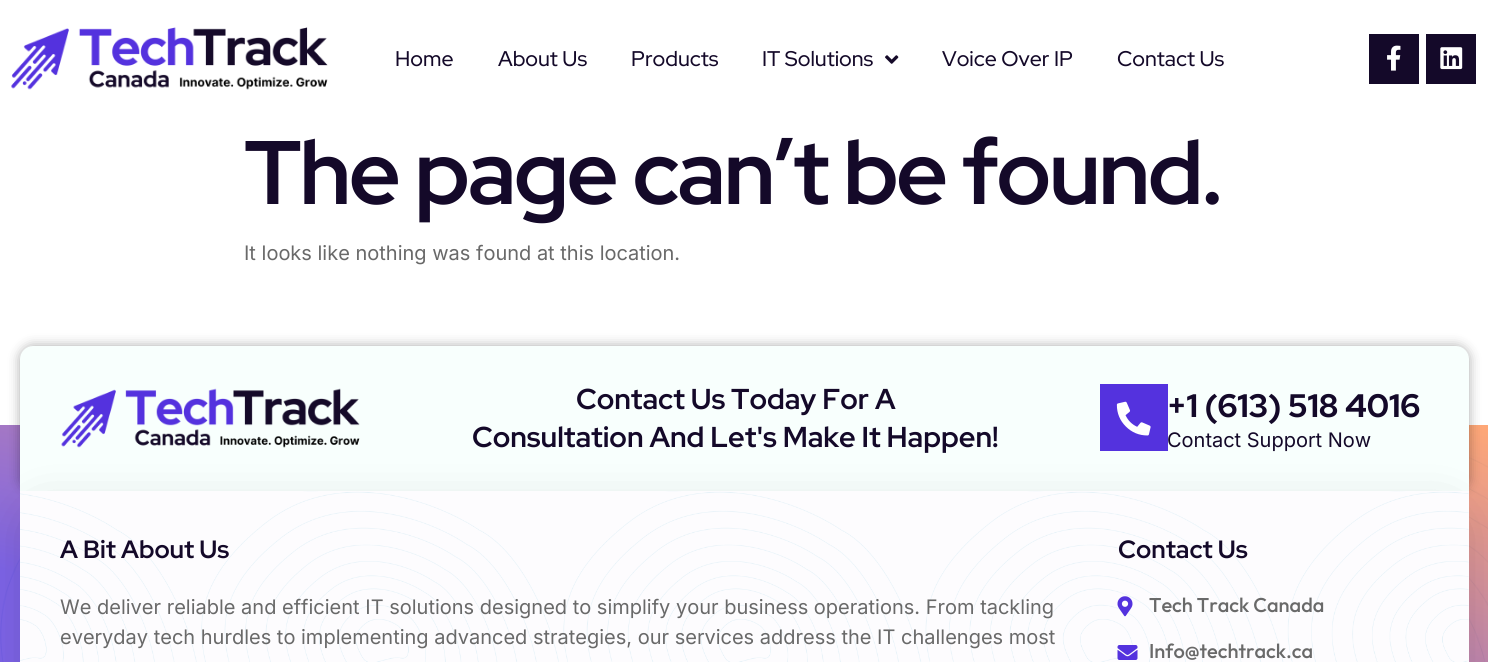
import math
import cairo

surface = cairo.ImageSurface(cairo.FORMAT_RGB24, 1488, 662)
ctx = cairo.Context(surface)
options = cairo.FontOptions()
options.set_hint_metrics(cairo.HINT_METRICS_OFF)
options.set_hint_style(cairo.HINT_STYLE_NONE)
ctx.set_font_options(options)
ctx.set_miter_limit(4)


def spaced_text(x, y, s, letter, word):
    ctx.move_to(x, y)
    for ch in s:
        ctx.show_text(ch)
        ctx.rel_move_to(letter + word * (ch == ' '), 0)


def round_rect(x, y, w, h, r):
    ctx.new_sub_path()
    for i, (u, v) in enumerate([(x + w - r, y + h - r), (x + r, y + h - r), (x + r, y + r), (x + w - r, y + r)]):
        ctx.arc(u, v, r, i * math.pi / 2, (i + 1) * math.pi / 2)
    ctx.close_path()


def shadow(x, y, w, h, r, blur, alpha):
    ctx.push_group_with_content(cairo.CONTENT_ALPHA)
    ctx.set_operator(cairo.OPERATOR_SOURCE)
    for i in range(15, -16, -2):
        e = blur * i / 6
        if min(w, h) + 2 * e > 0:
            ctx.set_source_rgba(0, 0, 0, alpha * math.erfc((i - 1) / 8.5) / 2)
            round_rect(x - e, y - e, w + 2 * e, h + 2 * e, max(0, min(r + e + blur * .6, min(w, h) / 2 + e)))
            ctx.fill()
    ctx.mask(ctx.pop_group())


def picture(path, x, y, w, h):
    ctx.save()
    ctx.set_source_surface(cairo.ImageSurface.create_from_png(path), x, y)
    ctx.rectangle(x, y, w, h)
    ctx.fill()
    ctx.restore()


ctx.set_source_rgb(1, 1, 1)
ctx.paint()
picture("img1.png", 11, 27, 317, 63)
ctx.select_font_face("Red Hat Display Medium")
ctx.set_font_size(21.25)
ctx.set_source_rgb(0.082, 0.039, 0.161)
ctx.move_to(395, 66)
ctx.show_text("Home")
ctx.move_to(498, 66)
ctx.show_text("About Us")
ctx.move_to(631, 66)
ctx.show_text("Products")
ctx.move_to(762, 66)
ctx.show_text("IT Solutions")
picture("img2.png", 885, 55, 14, 9)
ctx.move_to(942, 66)
ctx.show_text("Voice Over IP")
ctx.move_to(1117, 66)
ctx.show_text("Contact Us")
ctx.rectangle(1369, 34, 50, 50)
ctx.fill()
picture("img3.png", 1387, 45, 14, 26)
ctx.rectangle(1426, 34, 50, 50)
ctx.fill()
picture("img4.png", 1440, 47, 23, 23)
ctx.select_font_face("Red Hat Display", cairo.FONT_SLANT_NORMAL, cairo.FONT_WEIGHT_BOLD)
ctx.set_font_size(90)
spaced_text(244, 204, "The page can’t be found.", -2.5, 0)
ctx.select_font_face("Inter")
ctx.set_font_size(20)
ctx.set_source_rgb(0.412, 0.412, 0.412)
ctx.move_to(244, 260)
ctx.show_text("It looks like nothing was found at this location.")
picture("img5.png", 0, 456, 1488, 206)
gradient = cairo.LinearGradient(832, 273, 657, 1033)
gradient.add_color_stop_rgba(0, 1, 0.549, 0.294, 0.76)
gradient.add_color_stop_rgba(0.61, 0.329, 0.196, 0.871, 0.76)
ctx.set_source(gradient)
ctx.rectangle(0, 425, 1488, 237)
ctx.fill()
ctx.set_source_rgb(0, 0, 0)
shadow(20, 346, 1449, 145, 13, 6, 0.33)
ctx.set_source_rgb(0.969, 1, 0.992)
ctx.new_path()
ctx.move_to(33, 346)
ctx.line_to(1456, 346)
ctx.curve_to(1463, 346, 1469, 352, 1469, 359)
ctx.line_to(1469, 491)
ctx.line_to(20, 491)
ctx.line_to(20, 359)
ctx.curve_to(20, 352, 26, 346, 33, 346)
ctx.close_path()
ctx.fill()
picture("img6.png", 61, 388, 299, 60)
ctx.select_font_face("Red Hat Display", cairo.FONT_SLANT_NORMAL, cairo.FONT_WEIGHT_BOLD)
ctx.set_font_size(28.75)
ctx.set_source_rgb(0.082, 0.039, 0.161)
ctx.move_to(576, 409)
ctx.show_text("Contact Us Today For A")
ctx.move_to(472, 447)
ctx.show_text("Consultation And Let's Make It Happen!")
ctx.set_source_rgb(0.329, 0.196, 0.871)
ctx.rectangle(1100, 384, 68, 67)
ctx.fill()
picture("img7.png", 1116, 401, 35, 35)
ctx.select_font_face("Red Hat Display ExtraBold")
ctx.set_font_size(32.5)
ctx.set_source_rgb(0.082, 0.039, 0.161)
ctx.move_to(1167, 417)
ctx.show_text("+1 (613) 518 4016")
ctx.select_font_face("Inter")
ctx.set_font_size(20)
ctx.move_to(1167, 447)
ctx.show_text("Contact Support Now")
ctx.set_source_rgb(0, 0, 0)
shadow(26, 510, 1437, 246, 19, 25, 0.15)
ctx.set_source_rgb(0.98, 0.976, 0.992)
ctx.rectangle(20, 491, 1449, 171)
ctx.fill()
picture("img8.png", 20, 491, 1449, 171)
ctx.set_source_rgba(1, 1, 1, 0.51)
ctx.rectangle(20, 491, 1449, 171)
ctx.fill()
ctx.select_font_face("Red Hat Display", cairo.FONT_SLANT_NORMAL, cairo.FONT_WEIGHT_BOLD)
ctx.set_font_size(25)
ctx.set_source_rgb(0.082, 0.039, 0.161)
ctx.move_to(60, 558)
ctx.show_text("A Bit About Us")
ctx.select_font_face("Inter")
ctx.set_font_size(20)
ctx.set_source_rgb(0.412, 0.412, 0.412)
ctx.move_to(60, 614)
ctx.show_text("We deliver reliable and efficient IT solutions designed to simplify your business operations. From tackling")
ctx.move_to(60, 644)
ctx.show_text("everyday tech hurdles to implementing advanced strategies, our services address the IT challenges most")
ctx.select_font_face("Red Hat Display", cairo.FONT_SLANT_NORMAL, cairo.FONT_WEIGHT_BOLD)
ctx.set_font_size(25)
ctx.set_source_rgb(0.082, 0.039, 0.161)
ctx.move_to(1118, 558)
ctx.show_text("Contact Us")
picture("img9.png", 1117, 596, 16, 21)
ctx.select_font_face("Outfit Medium")
ctx.set_font_size(20)
ctx.set_source_rgb(0.412, 0.412, 0.412)
ctx.move_to(1149, 612)
ctx.show_text("Tech Track Canada")
picture("img10.png", 1117, 645, 21, 15)
ctx.move_to(1149, 658)
ctx.show_text("Info@techtrack.ca")
surface.write_to_png("page.png")
